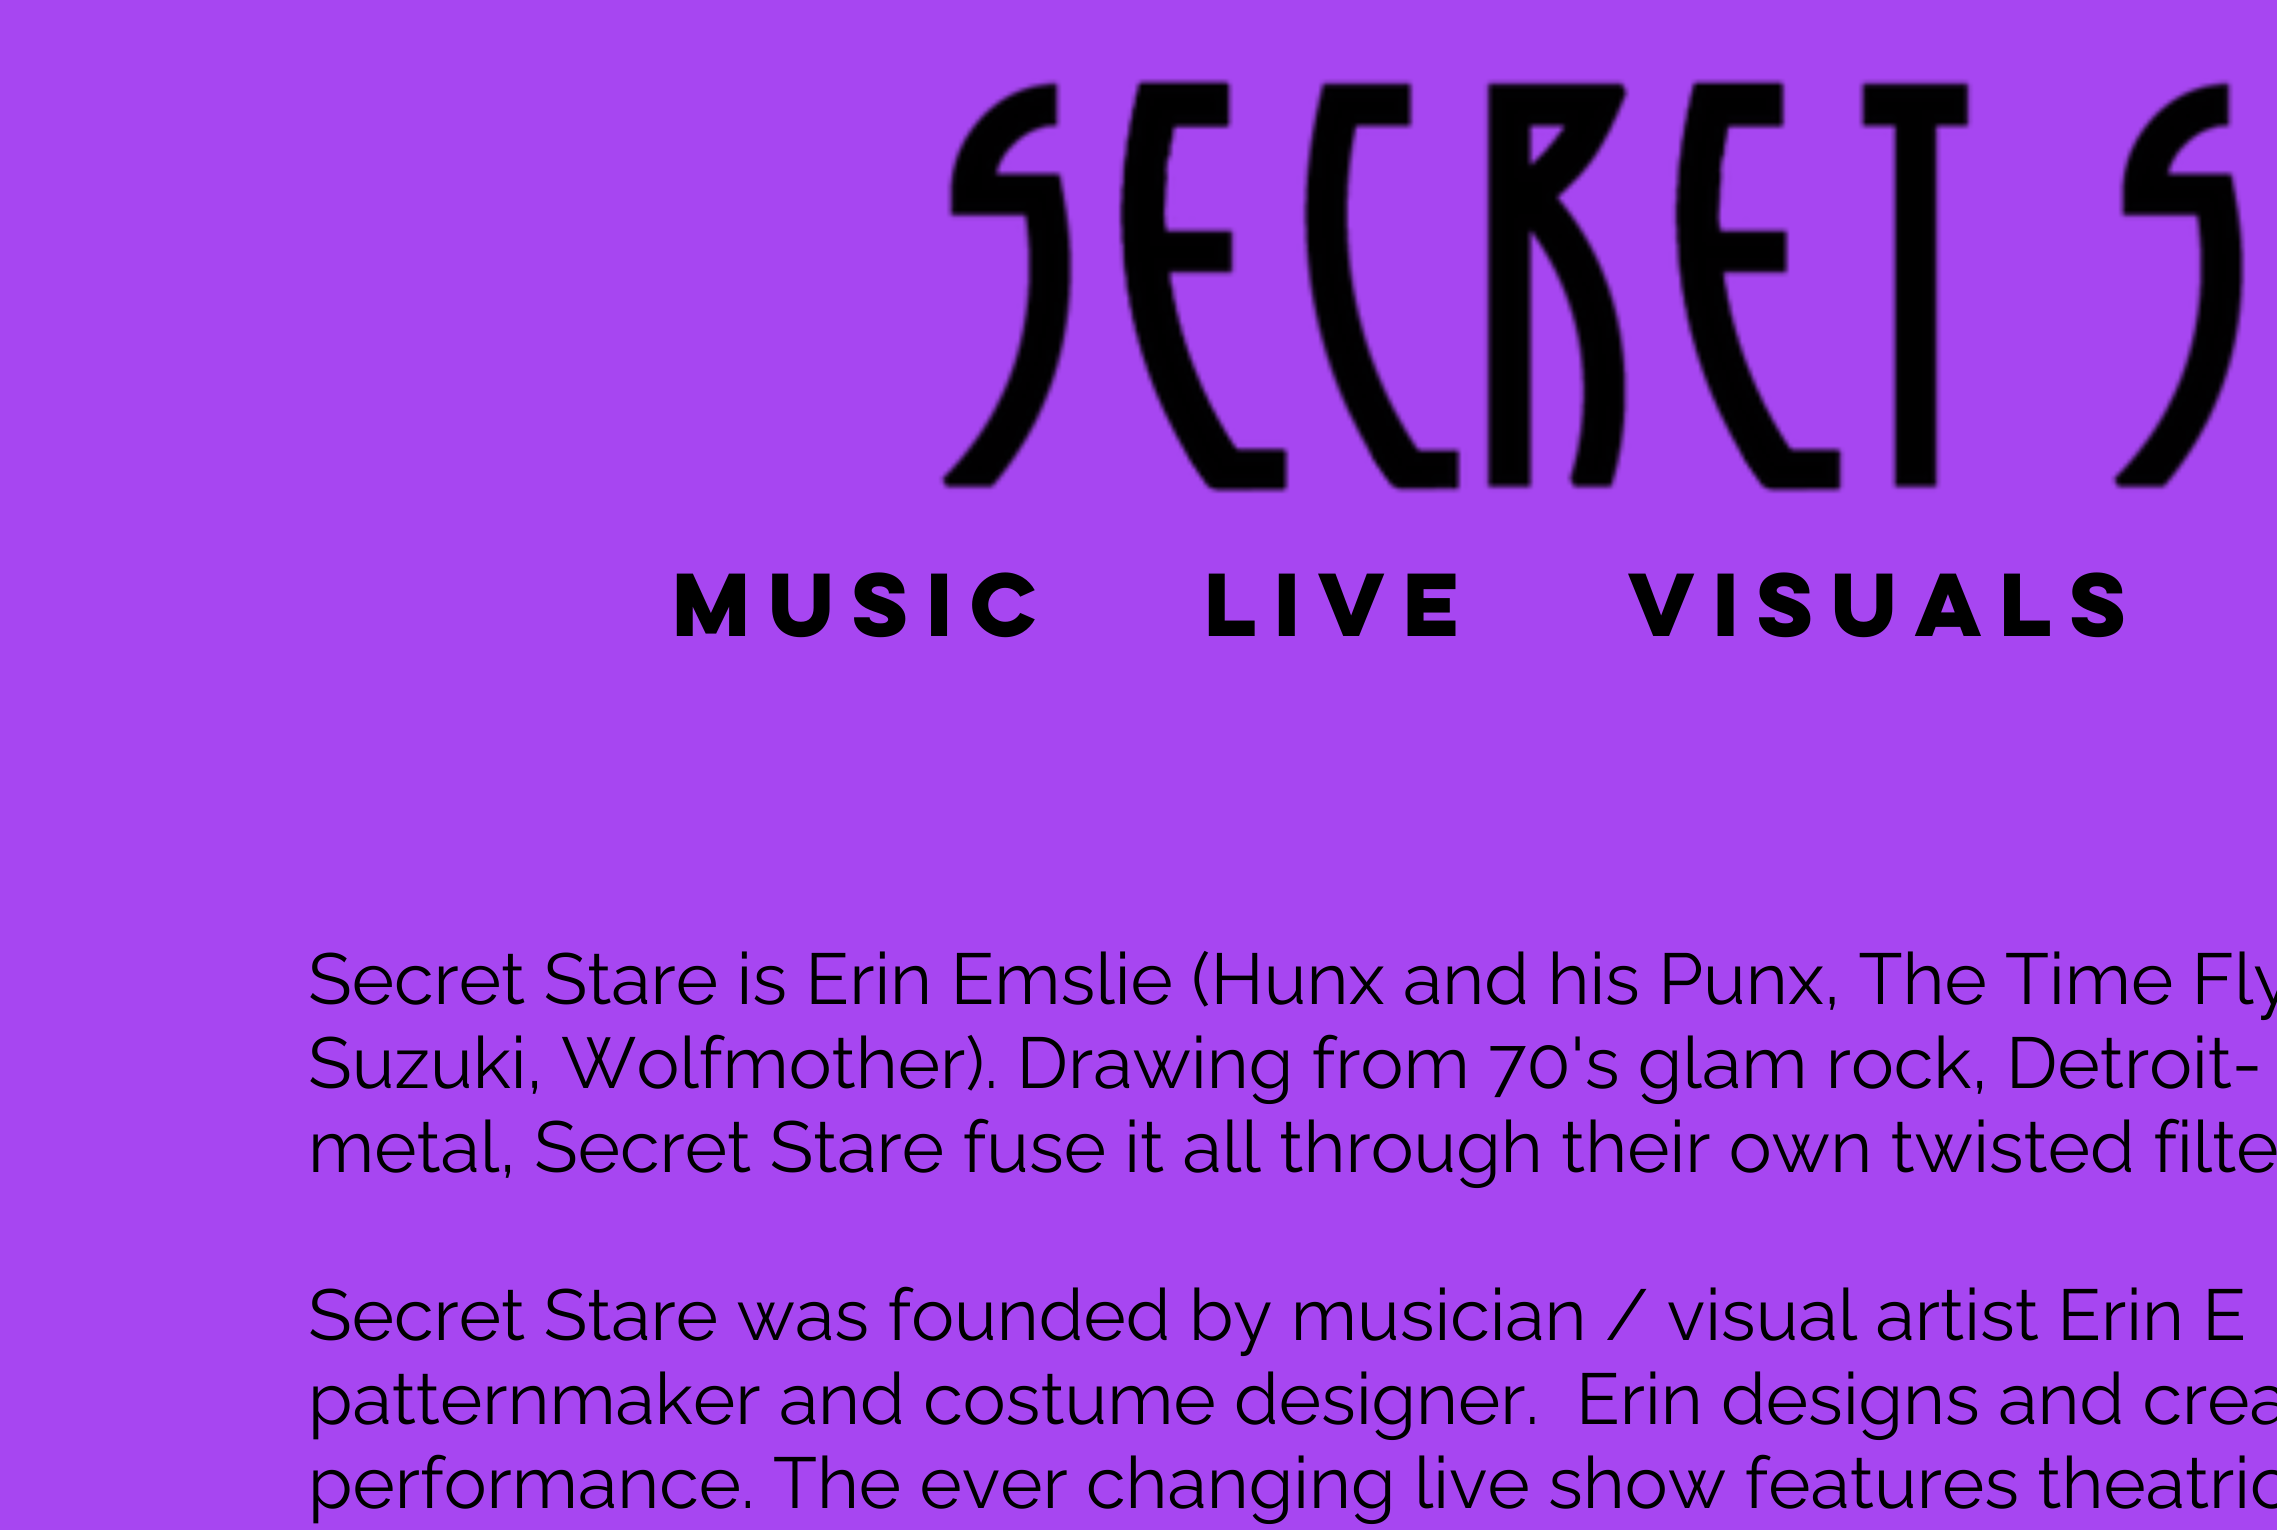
import math
import cairo

surface = cairo.ImageSurface(cairo.FORMAT_RGB24, 2277, 1530)
ctx = cairo.Context(surface)
options = cairo.FontOptions()
options.set_hint_metrics(cairo.HINT_METRICS_OFF)
options.set_hint_style(cairo.HINT_STYLE_NONE)
ctx.set_font_options(options)
ctx.set_miter_limit(4)


def picture(path, x, y, w, h):
    ctx.save()
    ctx.set_source_surface(cairo.ImageSurface.create_from_png(path), x, y)
    ctx.rectangle(x, y, w, h)
    ctx.fill()
    ctx.restore()


ctx.set_source_rgb(0.655, 0.275, 0.945)
ctx.paint()
picture("img1.png", 938, 78, 1308, 416)
ctx.select_font_face("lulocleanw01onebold", cairo.FONT_SLANT_NORMAL, cairo.FONT_WEIGHT_BOLD)
ctx.set_font_size(80)
ctx.set_source_rgb(0, 0, 0)
ctx.move_to(672, 636)
ctx.show_text("MUSIC")
ctx.move_to(1204, 636)
ctx.show_text("LIVE")
ctx.move_to(1628, 636)
ctx.show_text("VISUALS")
ctx.select_font_face("Raleway")
ctx.set_font_size(72)
ctx.move_to(308, 1004)
ctx.show_text("Secret Stare is Erin Emslie (Hunx and his Punx, The Time Fly")
ctx.move_to(308, 1088)
ctx.show_text("Suzuki, Wolfmother). Drawing from 70's glam rock, Detroit-")
ctx.move_to(308, 1172)
ctx.show_text("metal, Secret Stare fuse it all through their own twisted filte")
ctx.move_to(308, 1340)
ctx.show_text("Secret Stare was founded by musician / visual artist Erin E")
ctx.move_to(308, 1424)
ctx.show_text("patternmaker and costume designer.  Erin designs and crea")
ctx.move_to(308, 1508)
ctx.show_text("performance. The ever changing live show features theatric")
surface.write_to_png("page.png")
